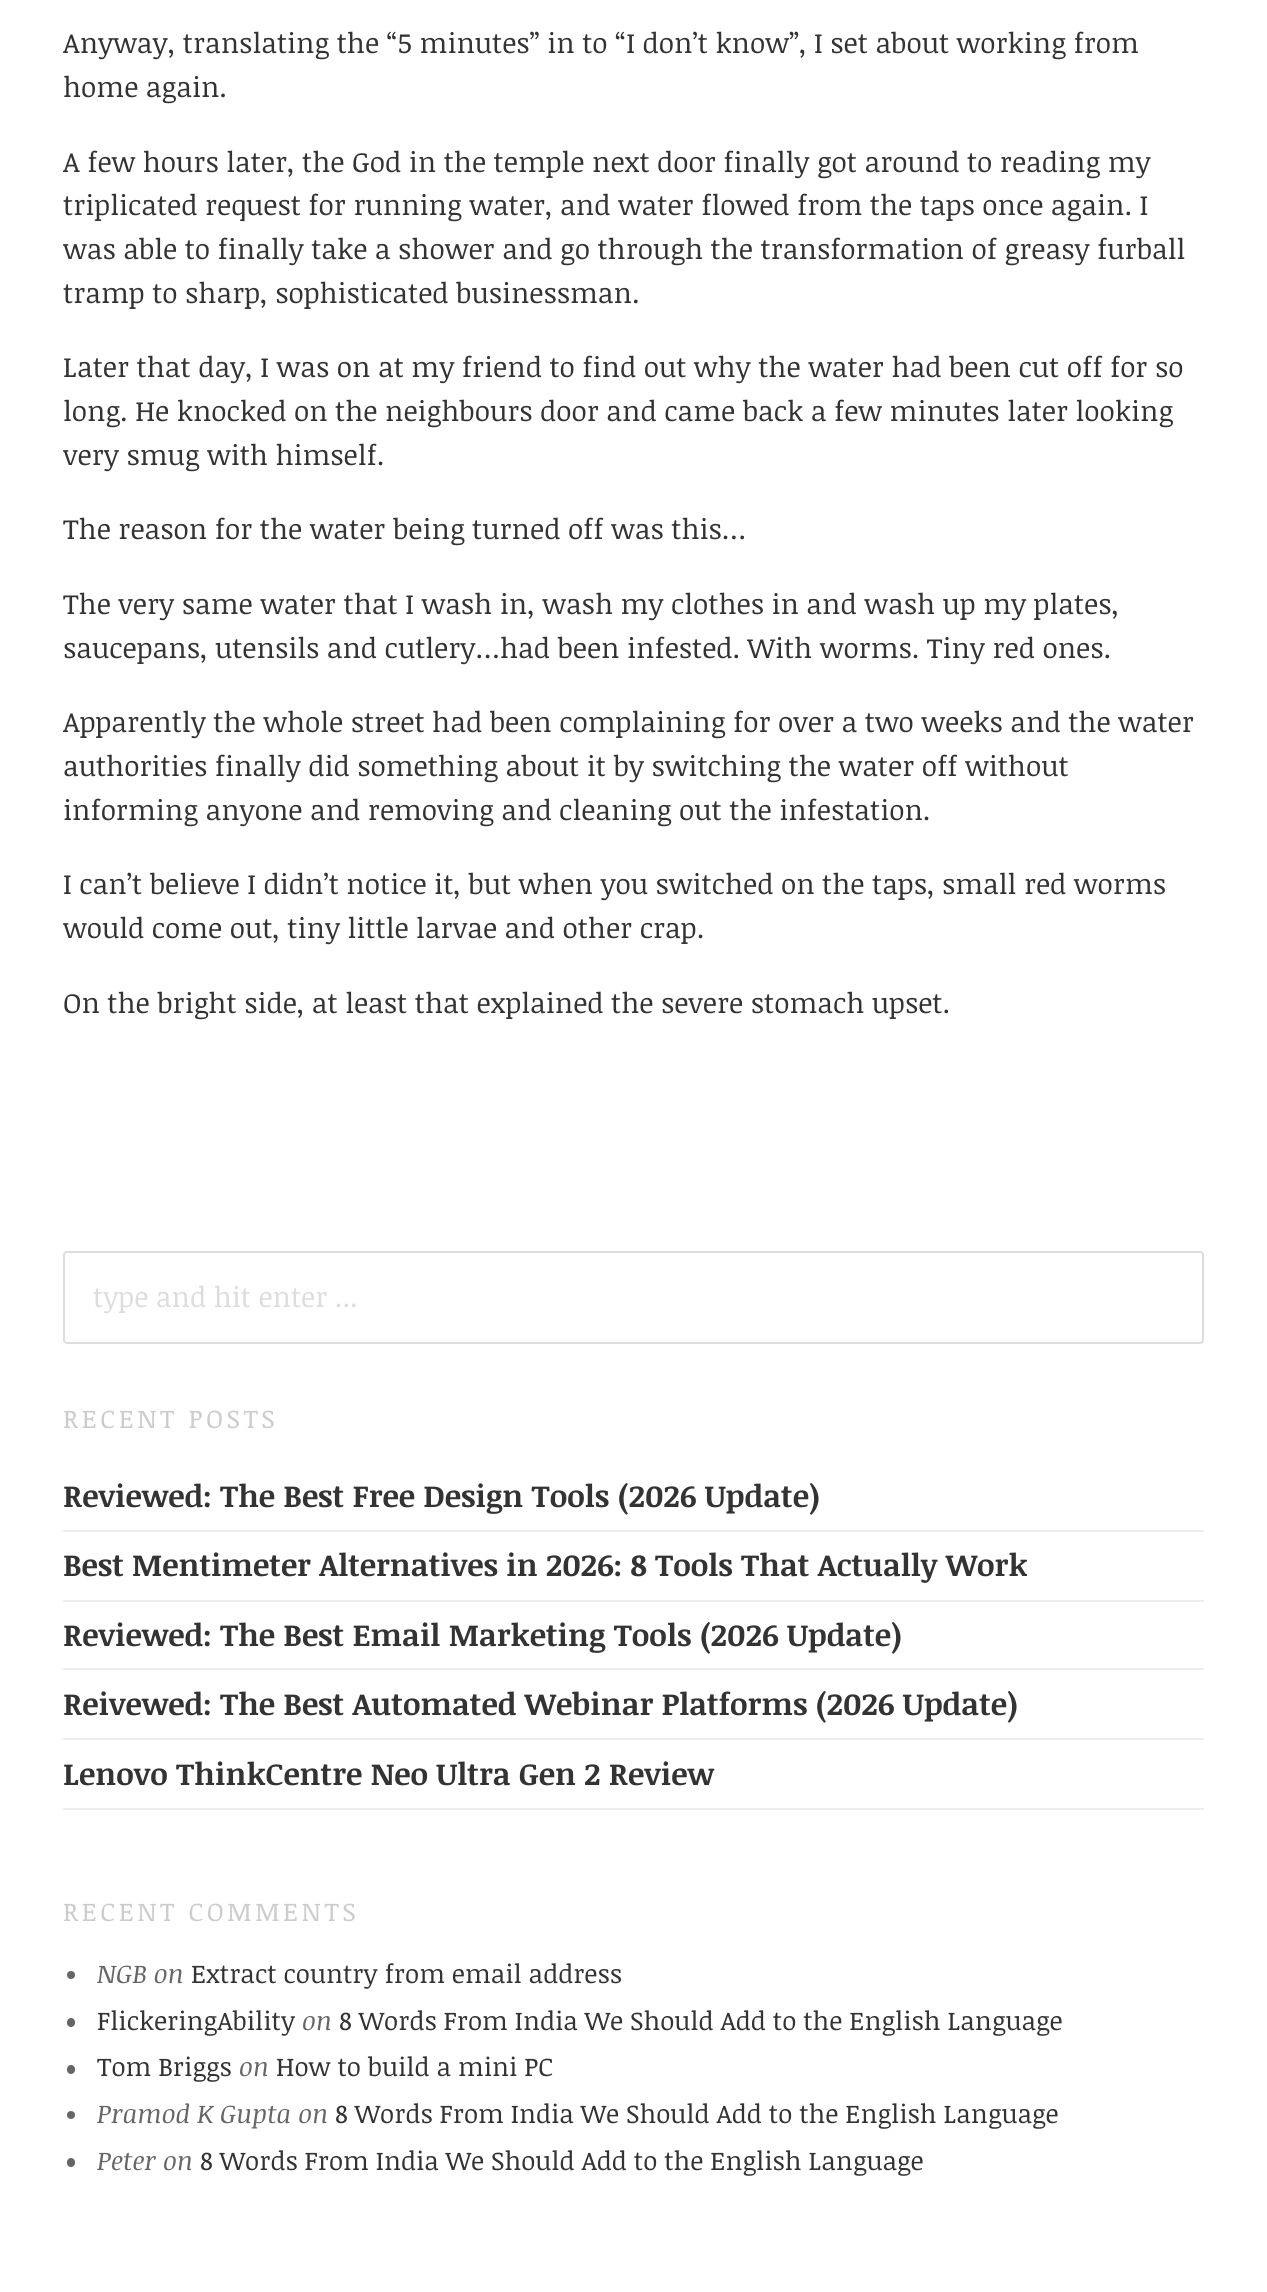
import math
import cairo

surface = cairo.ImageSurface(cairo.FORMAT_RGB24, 1267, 2292)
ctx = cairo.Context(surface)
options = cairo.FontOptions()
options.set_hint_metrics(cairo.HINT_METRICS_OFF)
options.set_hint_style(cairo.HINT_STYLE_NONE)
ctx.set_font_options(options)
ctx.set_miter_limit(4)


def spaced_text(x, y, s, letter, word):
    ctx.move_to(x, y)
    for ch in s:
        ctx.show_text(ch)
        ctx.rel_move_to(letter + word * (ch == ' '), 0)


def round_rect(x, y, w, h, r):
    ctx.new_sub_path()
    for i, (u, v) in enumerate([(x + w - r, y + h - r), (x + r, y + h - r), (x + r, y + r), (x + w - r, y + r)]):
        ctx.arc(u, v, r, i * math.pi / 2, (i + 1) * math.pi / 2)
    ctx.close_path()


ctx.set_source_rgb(1, 1, 1)
ctx.paint()
ctx.select_font_face("Noticia Text")
ctx.set_font_size(28)
ctx.set_source_rgb(0.2, 0.2, 0.2)
ctx.move_to(63, 53)
ctx.show_text("Anyway, translating the “5 minutes” in to “I don’t know”, I set about working from")
ctx.move_to(63, 97)
ctx.show_text("home again.")
ctx.move_to(63, 172)
ctx.show_text("A few hours later, the God in the temple next door finally got around to reading my")
ctx.move_to(63, 215)
ctx.show_text("triplicated request for running water, and water flowed from the taps once again. I")
ctx.move_to(63, 259)
ctx.show_text("was able to finally take a shower and go through the transformation of greasy furball")
ctx.move_to(63, 303)
ctx.show_text("tramp to sharp, sophisticated businessman.")
ctx.move_to(63, 377)
ctx.show_text("Later that day, I was on at my friend to find out why the water had been cut off for so")
ctx.move_to(63, 421)
ctx.show_text("long. He knocked on the neighbours door and came back a few minutes later looking")
ctx.move_to(63, 465)
ctx.show_text("very smug with himself.")
ctx.move_to(63, 539)
ctx.show_text("The reason for the water being turned off was this…")
ctx.move_to(63, 614)
ctx.show_text("The very same water that I wash in, wash my clothes in and wash up my plates,")
ctx.move_to(63, 658)
ctx.show_text("saucepans, utensils and cutlery…had been infested. With worms. Tiny red ones.")
ctx.move_to(63, 732)
ctx.show_text("Apparently the whole street had been complaining for over a two weeks and the water")
ctx.move_to(63, 776)
ctx.show_text("authorities finally did something about it by switching the water off without")
ctx.move_to(63, 820)
ctx.show_text("informing anyone and removing and cleaning out the infestation.")
ctx.move_to(63, 894)
ctx.show_text("I can’t believe I didn’t notice it, but when you switched on the taps, small red worms")
ctx.move_to(63, 938)
ctx.show_text("would come out, tiny little larvae and other crap.")
ctx.move_to(63, 1013)
ctx.show_text("On the bright side, at least that explained the severe stomach upset.")
round_rect(64, 1252, 1139, 91, 3)
ctx.set_source_rgb(0.867, 0.867, 0.867)
ctx.stroke()
ctx.move_to(93, 1307)
ctx.show_text("type and hit enter ...")
ctx.set_font_size(25.9)
ctx.set_source_rgb(0.8, 0.8, 0.8)
spaced_text(63, 1428, "RECENT POSTS", 3.5, 0)
ctx.set_source_rgb(0.933, 0.933, 0.933)
ctx.rectangle(63, 1530, 1141, 2)
ctx.fill()
ctx.select_font_face("Noticia Text", cairo.FONT_SLANT_NORMAL, cairo.FONT_WEIGHT_BOLD)
ctx.set_font_size(30.8)
ctx.set_source_rgb(0.2, 0.2, 0.2)
ctx.move_to(63, 1507)
ctx.show_text("Reviewed: The Best Free Design Tools (2026 Update)")
ctx.set_source_rgb(0.933, 0.933, 0.933)
ctx.rectangle(63, 1600, 1141, 2)
ctx.fill()
ctx.set_source_rgb(0.2, 0.2, 0.2)
ctx.move_to(63, 1576)
ctx.show_text("Best Mentimeter Alternatives in 2026: 8 Tools That Actually Work")
ctx.set_source_rgb(0.933, 0.933, 0.933)
ctx.rectangle(63, 1668, 1141, 2)
ctx.fill()
ctx.set_source_rgb(0.2, 0.2, 0.2)
ctx.move_to(63, 1646)
ctx.show_text("Reviewed: The Best Email Marketing Tools (2026 Update)")
ctx.set_source_rgb(0.933, 0.933, 0.933)
ctx.rectangle(63, 1738, 1141, 2)
ctx.fill()
ctx.set_source_rgb(0.2, 0.2, 0.2)
ctx.move_to(63, 1715)
ctx.show_text("Reivewed: The Best Automated Webinar Platforms (2026 Update)")
ctx.set_source_rgb(0.933, 0.933, 0.933)
ctx.rectangle(63, 1808, 1141, 2)
ctx.fill()
ctx.set_source_rgb(0.2, 0.2, 0.2)
ctx.move_to(63, 1785)
ctx.show_text("Lenovo ThinkCentre Neo Ultra Gen 2 Review")
ctx.select_font_face("Noticia Text")
ctx.set_font_size(25.9)
ctx.set_source_rgb(0.8, 0.8, 0.8)
spaced_text(63, 1921, "RECENT COMMENTS", 3.5, 0)
ctx.set_source_rgb(0.4, 0.4, 0.4)
ctx.new_path()
ctx.arc(71, 1975, 4, 0, 2 * math.pi)
ctx.fill()
ctx.select_font_face("Noticia Text", cairo.FONT_SLANT_ITALIC)
ctx.move_to(97, 1983)
ctx.show_text("NGB on")
ctx.select_font_face("Noticia Text")
ctx.set_source_rgb(0.2, 0.2, 0.2)
ctx.move_to(191, 1983)
ctx.show_text("Extract country from email address")
ctx.set_source_rgb(0.4, 0.4, 0.4)
round_rect(67, 2018, 8, 9, 4)
ctx.fill()
ctx.set_source_rgb(0.2, 0.2, 0.2)
ctx.move_to(97, 2030)
ctx.show_text("FlickeringAbility")
ctx.select_font_face("Noticia Text", cairo.FONT_SLANT_ITALIC)
ctx.set_source_rgb(0.4, 0.4, 0.4)
ctx.move_to(302, 2030)
ctx.show_text("on")
ctx.select_font_face("Noticia Text")
ctx.set_source_rgb(0.2, 0.2, 0.2)
ctx.move_to(339, 2030)
ctx.show_text("8 Words From India We Should Add to the English Language")
ctx.set_source_rgb(0.4, 0.4, 0.4)
round_rect(67, 2065, 8, 9, 4)
ctx.fill()
ctx.set_source_rgb(0.2, 0.2, 0.2)
ctx.move_to(97, 2076)
ctx.show_text("Tom Briggs")
ctx.select_font_face("Noticia Text", cairo.FONT_SLANT_ITALIC)
ctx.set_source_rgb(0.4, 0.4, 0.4)
ctx.move_to(239, 2076)
ctx.show_text("on")
ctx.select_font_face("Noticia Text")
ctx.set_source_rgb(0.2, 0.2, 0.2)
ctx.move_to(276, 2076)
ctx.show_text("How to build a mini PC")
ctx.set_source_rgb(0.4, 0.4, 0.4)
ctx.new_path()
ctx.arc(71, 2115, 4, 0, 2 * math.pi)
ctx.fill()
ctx.select_font_face("Noticia Text", cairo.FONT_SLANT_ITALIC)
ctx.move_to(97, 2123)
ctx.show_text("Pramod K Gupta on")
ctx.select_font_face("Noticia Text")
ctx.set_source_rgb(0.2, 0.2, 0.2)
ctx.move_to(335, 2123)
ctx.show_text("8 Words From India We Should Add to the English Language")
ctx.set_source_rgb(0.4, 0.4, 0.4)
round_rect(67, 2158, 8, 9, 4)
ctx.fill()
ctx.select_font_face("Noticia Text", cairo.FONT_SLANT_ITALIC)
ctx.move_to(97, 2170)
ctx.show_text("Peter on")
ctx.select_font_face("Noticia Text")
ctx.set_source_rgb(0.2, 0.2, 0.2)
ctx.move_to(200, 2170)
ctx.show_text("8 Words From India We Should Add to the English Language")
surface.write_to_png("page.png")
